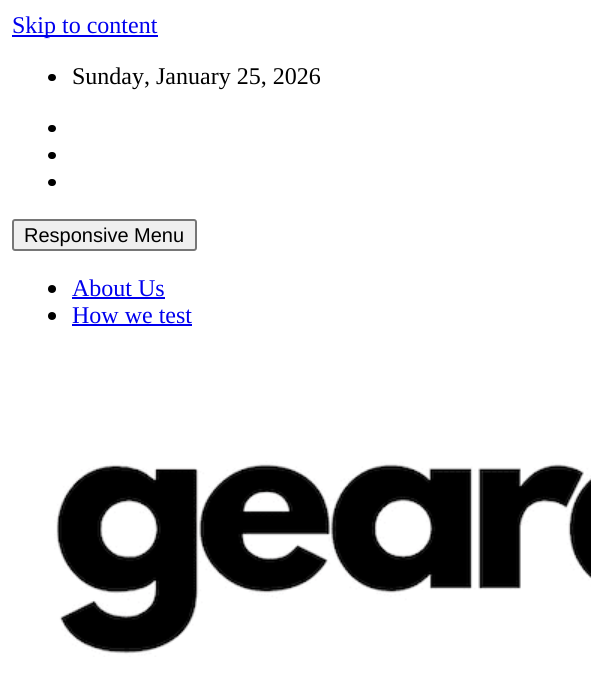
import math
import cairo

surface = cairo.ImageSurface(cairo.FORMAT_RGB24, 591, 688)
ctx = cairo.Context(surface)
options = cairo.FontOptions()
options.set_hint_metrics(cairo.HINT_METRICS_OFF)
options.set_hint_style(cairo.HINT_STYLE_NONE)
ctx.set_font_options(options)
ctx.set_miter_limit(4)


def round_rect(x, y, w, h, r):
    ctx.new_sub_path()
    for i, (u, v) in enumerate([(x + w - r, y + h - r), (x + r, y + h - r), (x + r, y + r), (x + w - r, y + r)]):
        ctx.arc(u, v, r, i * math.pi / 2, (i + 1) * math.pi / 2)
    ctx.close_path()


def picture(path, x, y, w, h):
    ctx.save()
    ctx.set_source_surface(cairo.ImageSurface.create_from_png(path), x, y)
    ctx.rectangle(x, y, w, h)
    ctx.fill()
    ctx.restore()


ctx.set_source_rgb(1, 1, 1)
ctx.paint()
ctx.set_source_rgb(0, 0, 0.933)
ctx.rectangle(12, 35, 146, 2)
ctx.fill()
ctx.select_font_face("Liberation Serif")
ctx.set_font_size(24)
ctx.move_to(12, 33)
ctx.show_text("Skip to content")
ctx.set_source_rgb(0, 0, 0)
round_rect(48, 74, 8, 7, 3.5)
ctx.fill()
ctx.move_to(72, 84)
ctx.show_text("Sunday, January 25, 2026")
round_rect(48, 125, 8, 7, 3.5)
ctx.fill()
round_rect(48, 152, 8, 7, 3.5)
ctx.fill()
round_rect(48, 179, 8, 7, 3.5)
ctx.fill()
ctx.set_source_rgb(0.937, 0.937, 0.937)
round_rect(13, 220, 183, 30, 2)
ctx.fill_preserve()
ctx.set_source_rgb(0.463, 0.463, 0.463)
ctx.stroke()
ctx.select_font_face("Liberation Sans")
ctx.set_font_size(20)
ctx.set_source_rgb(0, 0, 0)
ctx.move_to(24, 242)
ctx.show_text("Responsive Menu")
ctx.new_path()
ctx.arc(52, 289, 4, 0, 2 * math.pi)
ctx.fill()
ctx.select_font_face("Liberation Serif")
ctx.set_font_size(24)
ctx.set_source_rgb(0, 0, 0.933)
ctx.move_to(72, 296)
ctx.show_text("About Us")
ctx.rectangle(72, 297, 93, 2)
ctx.fill()
ctx.set_source_rgb(0, 0, 0)
ctx.arc(52, 316, 4, 0, 2 * math.pi)
ctx.fill()
ctx.set_source_rgb(0, 0, 0.933)
ctx.move_to(72, 323)
ctx.show_text("How we test")
ctx.rectangle(72, 324, 120, 2)
ctx.fill()
picture("img1.png", 54, 461, 537, 196)
surface.write_to_png("page.png")
